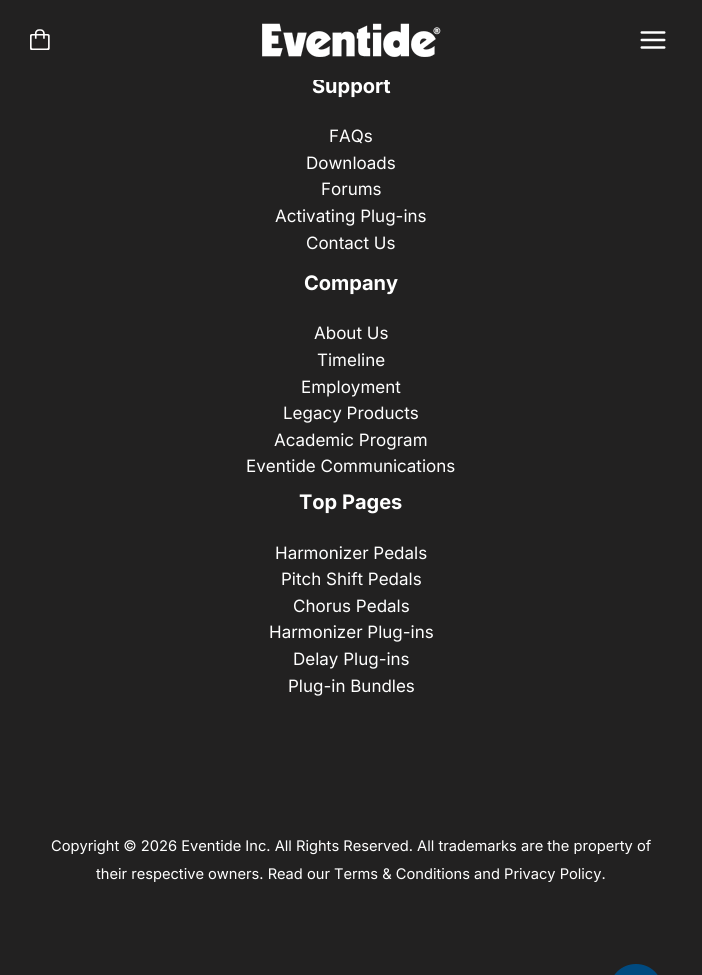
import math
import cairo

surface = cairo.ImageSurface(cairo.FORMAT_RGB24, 702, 975)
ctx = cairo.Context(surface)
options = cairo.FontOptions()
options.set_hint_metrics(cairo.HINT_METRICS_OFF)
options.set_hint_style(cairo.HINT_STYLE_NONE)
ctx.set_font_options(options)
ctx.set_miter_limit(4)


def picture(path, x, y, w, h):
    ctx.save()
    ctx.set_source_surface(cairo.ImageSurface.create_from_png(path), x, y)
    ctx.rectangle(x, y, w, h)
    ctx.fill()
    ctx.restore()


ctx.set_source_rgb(0.133, 0.129, 0.129)
ctx.paint()
ctx.select_font_face("Inter", cairo.FONT_SLANT_NORMAL, cairo.FONT_WEIGHT_BOLD)
ctx.set_font_size(20)
ctx.set_source_rgb(1, 1, 1)
ctx.move_to(312, 93)
ctx.show_text("Support")
ctx.set_source_rgb(0.133, 0.129, 0.129)
ctx.rectangle(314, 78, 74, 2)
ctx.fill()
picture("img1.png", 30, 29, 20, 21)
picture("img2.png", 262, 23, 179, 34)
picture("img3.png", 640, 31, 26, 18)
ctx.select_font_face("Inter")
ctx.set_font_size(17)
ctx.set_source_rgb(1, 1, 1)
ctx.move_to(329, 142)
ctx.show_text("FAQs")
ctx.move_to(306, 169)
ctx.show_text("Downloads")
ctx.move_to(321, 195)
ctx.show_text("Forums")
ctx.move_to(275, 222)
ctx.show_text("Activating Plug-ins")
ctx.move_to(306, 249)
ctx.show_text("Contact Us")
ctx.select_font_face("Inter", cairo.FONT_SLANT_NORMAL, cairo.FONT_WEIGHT_BOLD)
ctx.set_font_size(20)
ctx.move_to(304, 290)
ctx.show_text("Company")
ctx.select_font_face("Inter")
ctx.set_font_size(17)
ctx.move_to(314, 339)
ctx.show_text("About Us")
ctx.move_to(317, 366)
ctx.show_text("Timeline")
ctx.move_to(301, 393)
ctx.show_text("Employment")
ctx.move_to(283, 419)
ctx.show_text("Legacy Products")
ctx.move_to(274, 446)
ctx.show_text("Academic Program")
ctx.move_to(246, 472)
ctx.show_text("Eventide Communications")
ctx.select_font_face("Inter", cairo.FONT_SLANT_NORMAL, cairo.FONT_WEIGHT_BOLD)
ctx.set_font_size(20)
ctx.move_to(299, 509)
ctx.show_text("Top Pages")
ctx.select_font_face("Inter")
ctx.set_font_size(17)
ctx.move_to(275, 559)
ctx.show_text("Harmonizer Pedals")
ctx.move_to(281, 585)
ctx.show_text("Pitch Shift Pedals")
ctx.move_to(293, 612)
ctx.show_text("Chorus Pedals")
ctx.move_to(269, 638)
ctx.show_text("Harmonizer Plug-ins")
ctx.move_to(293, 665)
ctx.show_text("Delay Plug-ins")
ctx.move_to(288, 692)
ctx.show_text("Plug-in Bundles")
ctx.set_font_size(14.65)
ctx.move_to(51, 851)
ctx.show_text("Copyright © 2026 Eventide Inc. All Rights Reserved. All trademarks are the property of")
ctx.move_to(96, 879)
ctx.show_text("their respective owners. Read our Terms & Conditions and Privacy Policy.")
ctx.set_source_rgb(0, 0.29, 0.502)
ctx.new_path()
ctx.move_to(636, 964)
ctx.curve_to(650.5, 964, 662, 975, 662, 989)
ctx.curve_to(662, 1003, 650.5, 1014, 636, 1014)
ctx.curve_to(621.5, 1014, 610, 1003, 610, 989)
ctx.curve_to(610, 975, 621.5, 964, 636, 964)
ctx.close_path()
ctx.fill()
surface.write_to_png("page.png")
